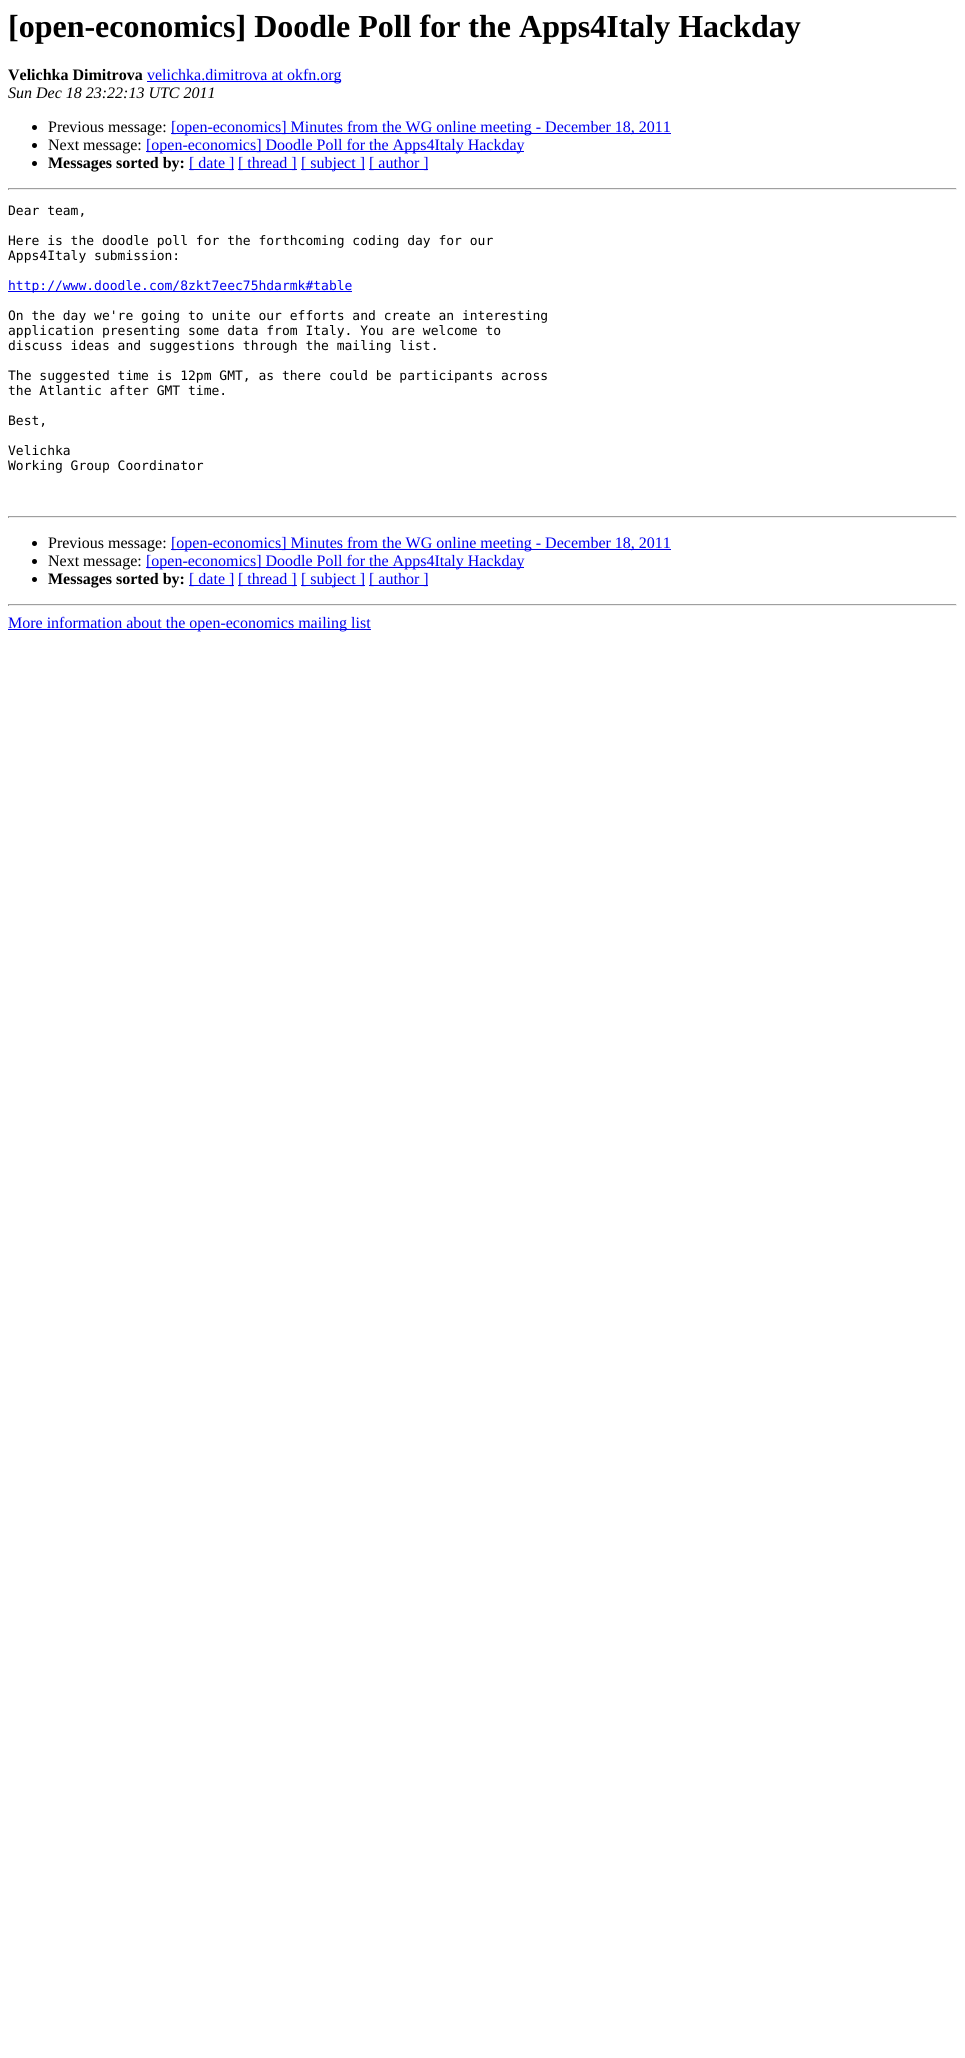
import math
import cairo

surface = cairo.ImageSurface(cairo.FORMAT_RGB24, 965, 2058)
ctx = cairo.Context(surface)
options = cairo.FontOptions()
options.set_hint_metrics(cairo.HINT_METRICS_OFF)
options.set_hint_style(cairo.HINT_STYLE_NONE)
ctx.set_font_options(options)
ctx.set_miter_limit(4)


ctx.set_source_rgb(1, 1, 1)
ctx.paint()
ctx.select_font_face("Liberation Serif", cairo.FONT_SLANT_NORMAL, cairo.FONT_WEIGHT_BOLD)
ctx.set_font_size(32)
ctx.set_source_rgb(0, 0, 0)
ctx.move_to(8, 37)
ctx.show_text("[open-economics] Doodle Poll for the Apps4Italy Hackday")
ctx.set_font_size(16)
ctx.move_to(8, 80)
ctx.show_text("Velichka Dimitrova")
ctx.set_source_rgb(0, 0, 0.933)
ctx.rectangle(147, 81, 194, 1)
ctx.fill()
ctx.select_font_face("Liberation Serif")
ctx.move_to(147, 80)
ctx.show_text("velichka.dimitrova at okfn.org")
ctx.select_font_face("Liberation Serif", cairo.FONT_SLANT_ITALIC)
ctx.set_source_rgb(0, 0, 0)
ctx.move_to(8, 98)
ctx.show_text("Sun Dec 18 23:22:13 UTC 2011")
ctx.new_path()
ctx.arc(34.5, 127.5, 2.5, 0, 2 * math.pi)
ctx.fill()
ctx.select_font_face("Liberation Serif")
ctx.move_to(48, 132)
ctx.show_text("Previous message:")
ctx.set_source_rgb(0, 0, 0.933)
ctx.rectangle(171, 133, 500, 1)
ctx.fill()
ctx.move_to(171, 132)
ctx.show_text("[open-economics] Minutes from the WG online meeting - December 18, 2011")
ctx.set_source_rgb(0, 0, 0)
ctx.new_path()
ctx.arc(34.5, 145.5, 2.5, 0, 2 * math.pi)
ctx.fill()
ctx.move_to(48, 150)
ctx.show_text("Next message:")
ctx.set_source_rgb(0, 0, 0.933)
ctx.rectangle(146, 151, 378, 1)
ctx.fill()
ctx.move_to(146, 150)
ctx.show_text("[open-economics] Doodle Poll for the Apps4Italy Hackday")
ctx.set_source_rgb(0, 0, 0)
ctx.new_path()
ctx.arc(34.5, 163.5, 2.5, 0, 2 * math.pi)
ctx.fill()
ctx.select_font_face("Liberation Serif", cairo.FONT_SLANT_NORMAL, cairo.FONT_WEIGHT_BOLD)
ctx.move_to(48, 168)
ctx.show_text("Messages sorted by:")
ctx.set_source_rgb(0, 0, 0.933)
ctx.rectangle(189, 169, 45, 1)
ctx.fill()
ctx.select_font_face("Liberation Serif")
ctx.move_to(189, 168)
ctx.show_text("[ date ]")
ctx.rectangle(238, 169, 59, 1)
ctx.fill()
ctx.move_to(238, 168)
ctx.show_text("[ thread ]")
ctx.rectangle(301, 169, 64, 1)
ctx.fill()
ctx.move_to(301, 168)
ctx.show_text("[ subject ]")
ctx.rectangle(369, 169, 59, 1)
ctx.fill()
ctx.move_to(369, 168)
ctx.show_text("[ author ]")
ctx.set_source_rgb(0.624, 0.624, 0.624)
ctx.rectangle(8, 188, 949, 1)
ctx.fill()
ctx.set_source_rgb(0.933, 0.933, 0.933)
ctx.rectangle(956, 188, 1, 2)
ctx.fill()
ctx.rectangle(8, 189, 949, 1)
ctx.fill()
ctx.set_source_rgb(0.624, 0.624, 0.624)
ctx.rectangle(8, 188, 1, 2)
ctx.fill()
ctx.select_font_face("DejaVu Sans Mono")
ctx.set_font_size(13)
ctx.set_source_rgb(0, 0, 0)
ctx.move_to(8, 215)
ctx.show_text("Dear team,")
ctx.move_to(8, 245)
ctx.show_text("Here is the doodle poll for the forthcoming coding day for our")
ctx.move_to(8, 260)
ctx.show_text("Apps4Italy submission:")
ctx.set_source_rgb(0, 0, 0.933)
ctx.rectangle(8, 291, 344, 1)
ctx.fill()
ctx.move_to(8, 290)
ctx.show_text("http://www.doodle.com/8zkt7eec75hdarmk#table")
ctx.set_source_rgb(0, 0, 0)
ctx.move_to(8, 320)
ctx.show_text("On the day we're going to unite our efforts and create an interesting")
ctx.move_to(8, 335)
ctx.show_text("application presenting some data from Italy. You are welcome to")
ctx.move_to(8, 350)
ctx.show_text("discuss ideas and suggestions through the mailing list.")
ctx.move_to(8, 380)
ctx.show_text("The suggested time is 12pm GMT, as there could be participants across")
ctx.move_to(8, 395)
ctx.show_text("the Atlantic after GMT time.")
ctx.move_to(8, 425)
ctx.show_text("Best,")
ctx.move_to(8, 455)
ctx.show_text("Velichka")
ctx.move_to(8, 470)
ctx.show_text("Working Group Coordinator")
ctx.set_source_rgb(0.624, 0.624, 0.624)
ctx.rectangle(8, 516, 949, 1)
ctx.fill()
ctx.set_source_rgb(0.933, 0.933, 0.933)
ctx.rectangle(956, 516, 1, 2)
ctx.fill()
ctx.rectangle(8, 517, 949, 1)
ctx.fill()
ctx.set_source_rgb(0.624, 0.624, 0.624)
ctx.rectangle(8, 516, 1, 2)
ctx.fill()
ctx.set_source_rgb(0, 0, 0)
ctx.arc(34.5, 543.5, 2.5, 0, 2 * math.pi)
ctx.fill()
ctx.select_font_face("Liberation Serif")
ctx.set_font_size(16)
ctx.move_to(48, 548)
ctx.show_text("Previous message:")
ctx.set_source_rgb(0, 0, 0.933)
ctx.rectangle(171, 549, 500, 1)
ctx.fill()
ctx.move_to(171, 548)
ctx.show_text("[open-economics] Minutes from the WG online meeting - December 18, 2011")
ctx.set_source_rgb(0, 0, 0)
ctx.new_path()
ctx.arc(34.5, 561.5, 2.5, 0, 2 * math.pi)
ctx.fill()
ctx.move_to(48, 566)
ctx.show_text("Next message:")
ctx.set_source_rgb(0, 0, 0.933)
ctx.rectangle(146, 567, 378, 1)
ctx.fill()
ctx.move_to(146, 566)
ctx.show_text("[open-economics] Doodle Poll for the Apps4Italy Hackday")
ctx.set_source_rgb(0, 0, 0)
ctx.new_path()
ctx.arc(34.5, 579.5, 2.5, 0, 2 * math.pi)
ctx.fill()
ctx.select_font_face("Liberation Serif", cairo.FONT_SLANT_NORMAL, cairo.FONT_WEIGHT_BOLD)
ctx.move_to(48, 584)
ctx.show_text("Messages sorted by:")
ctx.set_source_rgb(0, 0, 0.933)
ctx.rectangle(189, 585, 45, 1)
ctx.fill()
ctx.select_font_face("Liberation Serif")
ctx.move_to(189, 584)
ctx.show_text("[ date ]")
ctx.rectangle(238, 585, 59, 1)
ctx.fill()
ctx.move_to(238, 584)
ctx.show_text("[ thread ]")
ctx.rectangle(301, 585, 64, 1)
ctx.fill()
ctx.move_to(301, 584)
ctx.show_text("[ subject ]")
ctx.rectangle(369, 585, 59, 1)
ctx.fill()
ctx.move_to(369, 584)
ctx.show_text("[ author ]")
ctx.set_source_rgb(0.624, 0.624, 0.624)
ctx.rectangle(8, 604, 949, 1)
ctx.fill()
ctx.set_source_rgb(0.933, 0.933, 0.933)
ctx.rectangle(956, 604, 1, 2)
ctx.fill()
ctx.rectangle(8, 605, 949, 1)
ctx.fill()
ctx.set_source_rgb(0.624, 0.624, 0.624)
ctx.rectangle(8, 604, 1, 2)
ctx.fill()
ctx.set_source_rgb(0, 0, 0.933)
ctx.rectangle(8, 629, 363, 1)
ctx.fill()
ctx.move_to(8, 628)
ctx.show_text("More information about the open-economics mailing list")
surface.write_to_png("page.png")
